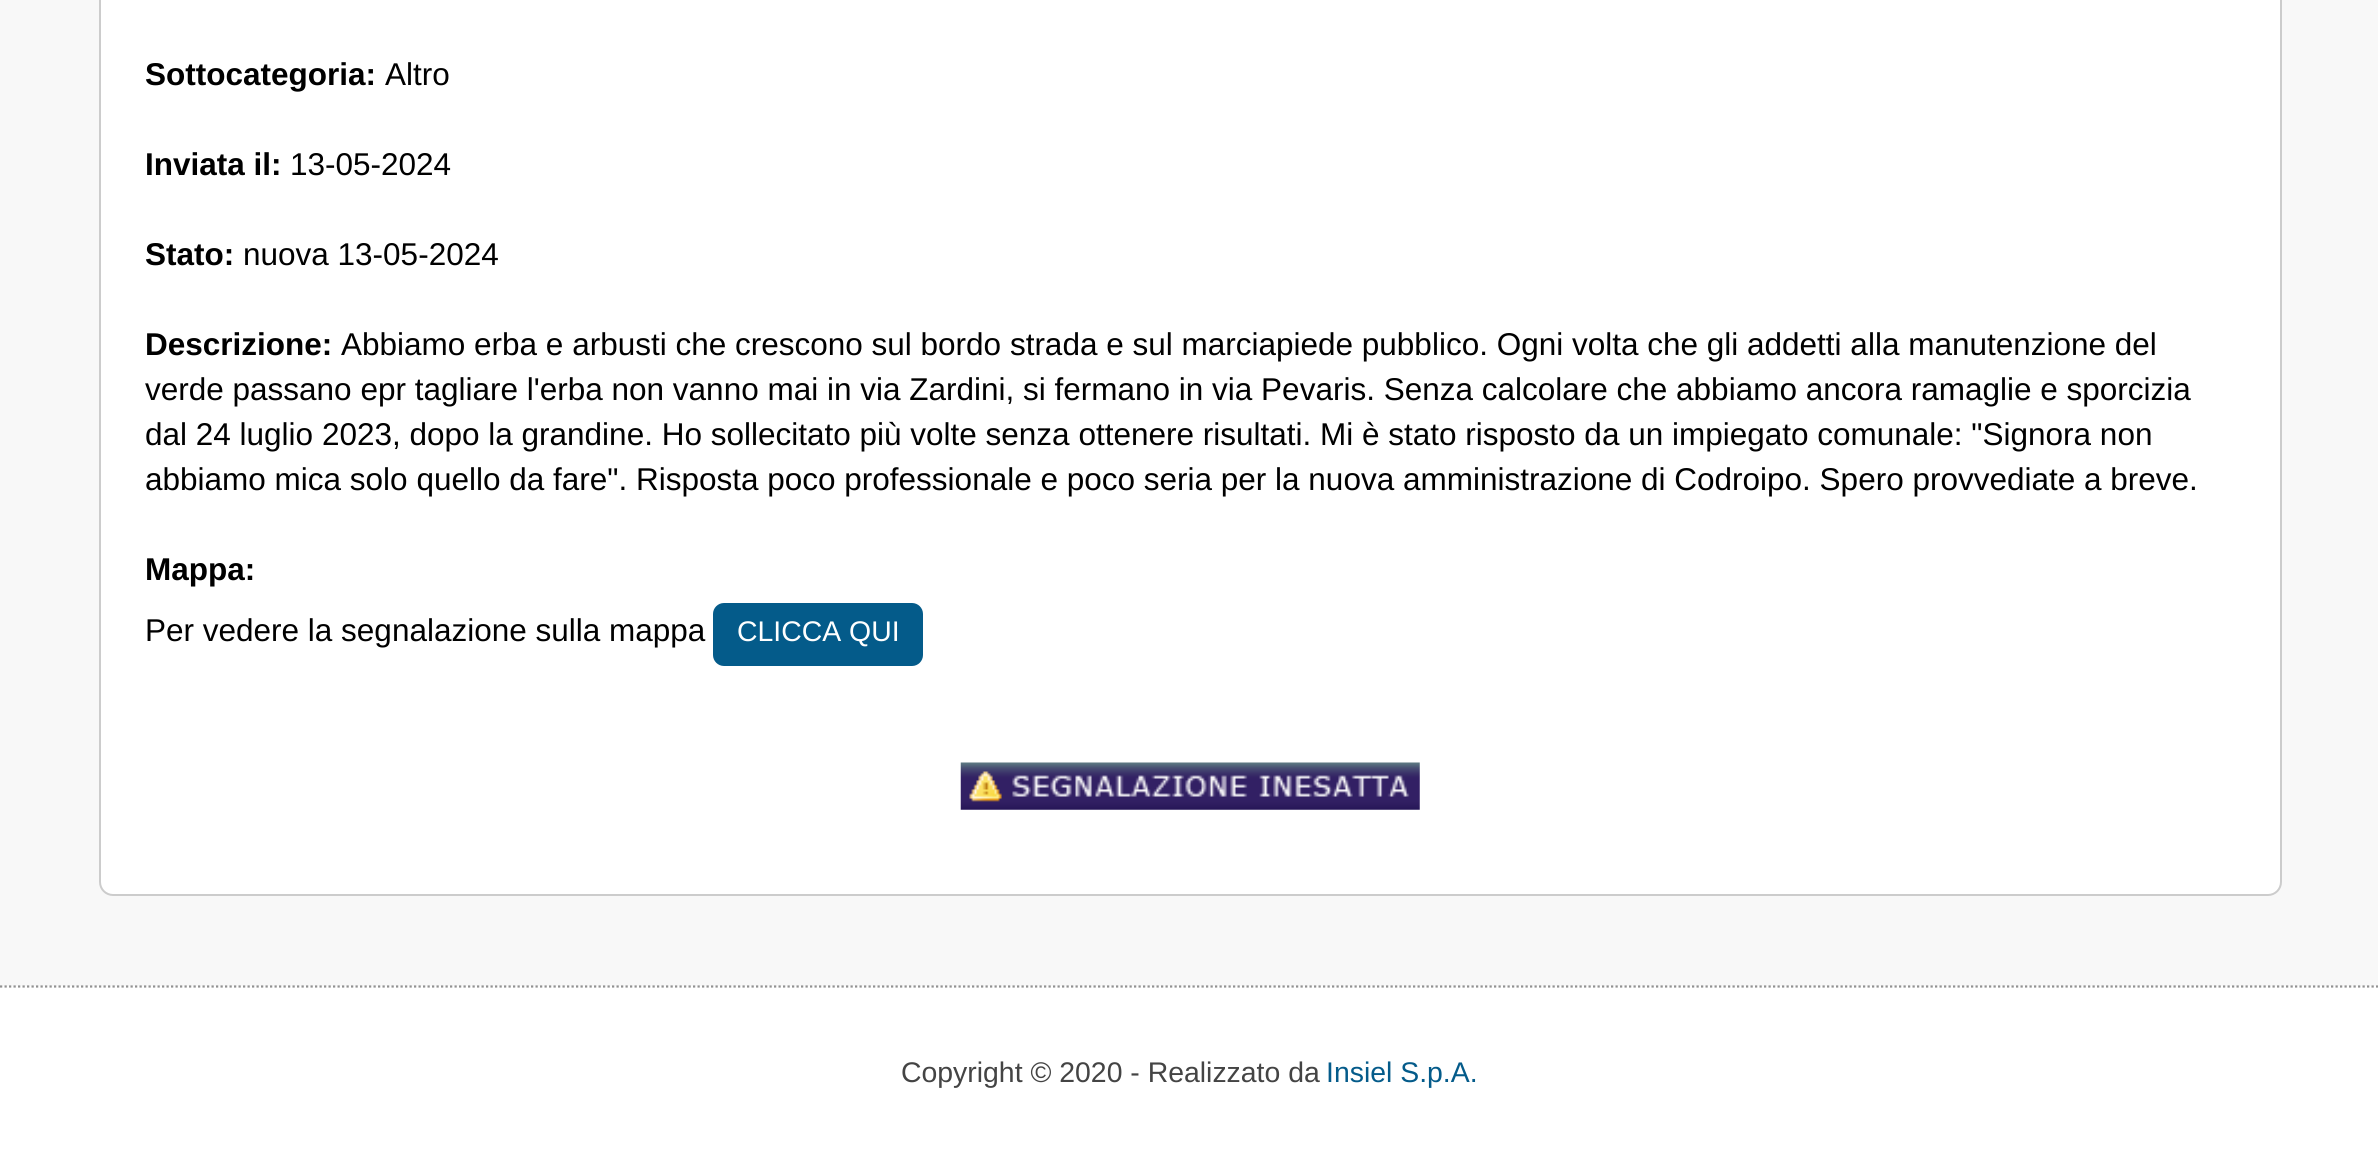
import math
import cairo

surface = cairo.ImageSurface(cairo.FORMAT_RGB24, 2378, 1162)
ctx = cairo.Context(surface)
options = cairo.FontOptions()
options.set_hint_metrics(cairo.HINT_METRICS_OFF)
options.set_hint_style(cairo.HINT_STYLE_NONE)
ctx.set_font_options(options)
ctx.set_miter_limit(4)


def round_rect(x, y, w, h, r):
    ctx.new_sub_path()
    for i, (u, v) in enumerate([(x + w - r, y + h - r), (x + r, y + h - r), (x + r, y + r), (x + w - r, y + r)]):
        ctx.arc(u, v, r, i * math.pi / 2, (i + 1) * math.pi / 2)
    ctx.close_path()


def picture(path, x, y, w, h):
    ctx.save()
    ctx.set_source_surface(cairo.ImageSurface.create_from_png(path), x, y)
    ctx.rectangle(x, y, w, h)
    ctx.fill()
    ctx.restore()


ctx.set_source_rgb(0.969, 0.969, 0.969)
ctx.paint()
ctx.set_source_rgb(1, 1, 1)
round_rect(100, -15, 2181, 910, 13)
ctx.fill_preserve()
ctx.set_source_rgb(0.8, 0.8, 0.8)
ctx.stroke()
ctx.select_font_face("Liberation Sans", cairo.FONT_SLANT_NORMAL, cairo.FONT_WEIGHT_BOLD)
ctx.set_font_size(31.5)
ctx.set_source_rgb(0, 0, 0)
ctx.move_to(145, 85)
ctx.show_text("Sottocategoria:")
ctx.select_font_face("Liberation Sans")
ctx.move_to(385, 85)
ctx.show_text("Altro")
ctx.select_font_face("Liberation Sans", cairo.FONT_SLANT_NORMAL, cairo.FONT_WEIGHT_BOLD)
ctx.move_to(145, 175)
ctx.show_text("Inviata il:")
ctx.select_font_face("Liberation Sans")
ctx.move_to(290, 175)
ctx.show_text("13-05-2024")
ctx.select_font_face("Liberation Sans", cairo.FONT_SLANT_NORMAL, cairo.FONT_WEIGHT_BOLD)
ctx.move_to(145, 265)
ctx.show_text("Stato:")
ctx.select_font_face("Liberation Sans")
ctx.move_to(243, 265)
ctx.show_text("nuova 13-05-2024")
ctx.select_font_face("Liberation Sans", cairo.FONT_SLANT_NORMAL, cairo.FONT_WEIGHT_BOLD)
ctx.move_to(145, 355)
ctx.show_text("Descrizione:")
ctx.select_font_face("Liberation Sans")
ctx.move_to(341, 355)
ctx.show_text("Abbiamo erba e arbusti che crescono sul bordo strada e sul marciapiede pubblico. Ogni volta che gli addetti alla manutenzione del")
ctx.move_to(145, 400)
ctx.show_text("verde passano epr tagliare l'erba non vanno mai in via Zardini, si fermano in via Pevaris. Senza calcolare che abbiamo ancora ramaglie e sporcizia")
ctx.move_to(145, 445)
ctx.show_text("dal 24 luglio 2023, dopo la grandine. Ho sollecitato più volte senza ottenere risultati. Mi è stato risposto da un impiegato comunale: \"Signora non")
ctx.move_to(145, 490)
ctx.show_text("abbiamo mica solo quello da fare\". Risposta poco professionale e poco seria per la nuova amministrazione di Codroipo. Spero provvediate a breve.")
ctx.select_font_face("Liberation Sans", cairo.FONT_SLANT_NORMAL, cairo.FONT_WEIGHT_BOLD)
ctx.move_to(145, 580)
ctx.show_text("Mappa:")
ctx.select_font_face("Liberation Sans")
ctx.move_to(145, 641)
ctx.show_text("Per vedere la segnalazione sulla mappa")
ctx.set_source_rgb(0.016, 0.357, 0.541)
round_rect(713, 603, 210, 63, 11)
ctx.fill()
ctx.set_font_size(28.4)
ctx.set_source_rgb(1, 1, 1)
ctx.move_to(737, 641)
ctx.show_text("CLICCA QUI")
picture("img1.png", 960, 762, 460, 48)
ctx.rectangle(0, 986, 2378, 176)
ctx.fill()
ctx.new_path()
ctx.move_to(0, 986.5)
ctx.line_to(2378, 986.5)
ctx.set_source_rgb(0.569, 0.569, 0.569)
ctx.set_line_width(2.2)
ctx.set_dash([2.25, 2.25])
ctx.stroke()
ctx.set_source_rgb(0.267, 0.267, 0.267)
ctx.move_to(901, 1082)
ctx.show_text("Copyright © 2020 - Realizzato da")
ctx.set_source_rgb(0.016, 0.357, 0.541)
ctx.move_to(1326, 1082)
ctx.show_text("Insiel S.p.A.")
surface.write_to_png("page.png")
